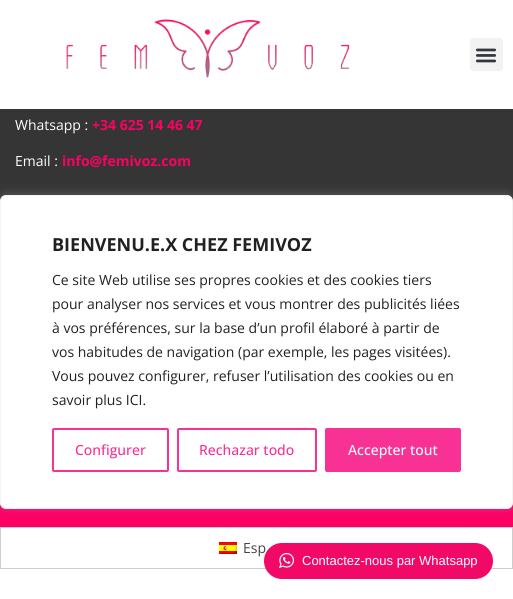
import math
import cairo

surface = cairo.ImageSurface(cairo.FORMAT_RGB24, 513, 599)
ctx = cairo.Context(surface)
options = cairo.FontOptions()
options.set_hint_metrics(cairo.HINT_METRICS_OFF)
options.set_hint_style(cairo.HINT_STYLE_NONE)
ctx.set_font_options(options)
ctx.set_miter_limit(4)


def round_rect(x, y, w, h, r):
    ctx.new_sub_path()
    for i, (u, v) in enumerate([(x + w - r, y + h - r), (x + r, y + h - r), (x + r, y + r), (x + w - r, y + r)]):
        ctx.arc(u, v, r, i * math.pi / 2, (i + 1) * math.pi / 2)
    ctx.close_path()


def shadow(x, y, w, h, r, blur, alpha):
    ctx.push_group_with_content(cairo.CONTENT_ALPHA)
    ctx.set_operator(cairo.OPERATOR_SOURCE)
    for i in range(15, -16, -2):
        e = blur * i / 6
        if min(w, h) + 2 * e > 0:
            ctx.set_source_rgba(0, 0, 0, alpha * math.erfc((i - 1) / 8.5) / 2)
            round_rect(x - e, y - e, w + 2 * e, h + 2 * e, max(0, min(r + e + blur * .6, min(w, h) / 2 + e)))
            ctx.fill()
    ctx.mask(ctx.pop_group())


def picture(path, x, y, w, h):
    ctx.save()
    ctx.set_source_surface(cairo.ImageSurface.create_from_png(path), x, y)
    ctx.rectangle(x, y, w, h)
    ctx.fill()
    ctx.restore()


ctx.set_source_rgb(1, 1, 1)
ctx.paint()
picture("img1.png", 66, 19, 284, 59)
ctx.set_source_rgb(0.949, 0.949, 0.949)
round_rect(470, 38, 33, 33, 3)
ctx.fill()
picture("img2.png", 475, 48, 22, 15)
ctx.set_source_rgb(0.212, 0.208, 0.208)
ctx.rectangle(0, 109, 513, 92)
ctx.fill()
ctx.select_font_face("Open Sans")
ctx.set_font_size(14)
ctx.set_source_rgb(1, 1, 1)
ctx.move_to(15, 130)
ctx.show_text("Whatsapp :")
ctx.select_font_face("Open Sans", cairo.FONT_SLANT_NORMAL, cairo.FONT_WEIGHT_BOLD)
ctx.set_source_rgb(0.988, 0, 0.392)
ctx.move_to(92, 130)
ctx.show_text("+34 625 14 46 47")
ctx.select_font_face("Open Sans")
ctx.set_source_rgb(1, 1, 1)
ctx.move_to(15, 166)
ctx.show_text("Email :")
ctx.select_font_face("Open Sans", cairo.FONT_SLANT_NORMAL, cairo.FONT_WEIGHT_BOLD)
ctx.set_source_rgb(0.988, 0, 0.392)
ctx.move_to(62, 166)
ctx.show_text("info@femivoz.com")
ctx.rectangle(0, 503, 513, 24)
ctx.fill()
ctx.set_source_rgb(0.675, 0.671, 0.671)
shadow(0, 194, 513, 314, 6, 5, 0.3)
ctx.set_source_rgb(1, 1, 1)
round_rect(0.5, 195.5, 512, 313, 5.5)
ctx.fill_preserve()
ctx.set_source_rgb(0.957, 0.957, 0.957)
ctx.set_line_width(1)
ctx.stroke()
ctx.set_font_size(18)
ctx.set_source_rgb(0.129, 0.129, 0.129)
ctx.move_to(52, 251)
ctx.show_text("BIENVENU.E.X CHEZ FEMIVOZ")
ctx.select_font_face("Open Sans")
ctx.set_font_size(14)
ctx.move_to(52, 285)
ctx.show_text("Ce site Web utilise ses propres cookies et des cookies tiers")
ctx.move_to(52, 309)
ctx.show_text("pour analyser nos services et vous montrer des publicités liées")
ctx.move_to(52, 333)
ctx.show_text("à vos préférences, sur la base d’un profil élaboré à partir de")
ctx.move_to(52, 357)
ctx.show_text("vos habitudes de navigation (par exemple, les pages visitées).")
ctx.move_to(52, 381)
ctx.show_text("Vous pouvez configurer, refuser l’utilisation des cookies ou en")
ctx.move_to(52, 405)
ctx.show_text("savoir plus ICI.")
round_rect(53, 429, 115, 42, 1)
ctx.set_source_rgb(0.969, 0.192, 0.58)
ctx.set_line_width(2)
ctx.stroke()
ctx.select_font_face("Open Sans Medium")
ctx.move_to(75, 455)
ctx.show_text("Configurer")
round_rect(178, 429, 138, 42, 1)
ctx.stroke()
ctx.move_to(199, 455)
ctx.show_text("Rechazar todo")
round_rect(326, 429, 134, 42, 1)
ctx.fill_preserve()
ctx.stroke()
ctx.set_source_rgb(1, 1, 1)
ctx.move_to(348, 455)
ctx.show_text("Accepter tout")
ctx.rectangle(0.5, 527.5, 512, 41)
ctx.set_source_rgb(0.804, 0.804, 0.804)
ctx.set_line_width(1)
ctx.stroke()
picture("img3.png", 219, 542, 18, 12)
ctx.select_font_face("Open Sans")
ctx.set_source_rgb(0.267, 0.267, 0.267)
ctx.move_to(243, 553)
ctx.show_text("Esp")
ctx.set_source_rgb(0.949, 0.035, 0.4)
round_rect(264, 543, 229, 36, 18)
ctx.fill()
picture("img4.png", 279, 553, 15, 15)
ctx.select_font_face("Liberation Sans")
ctx.set_font_size(13)
ctx.set_source_rgb(1, 1, 1)
ctx.move_to(302, 565)
ctx.show_text("Contactez-nous par Whatsapp")
surface.write_to_png("page.png")
